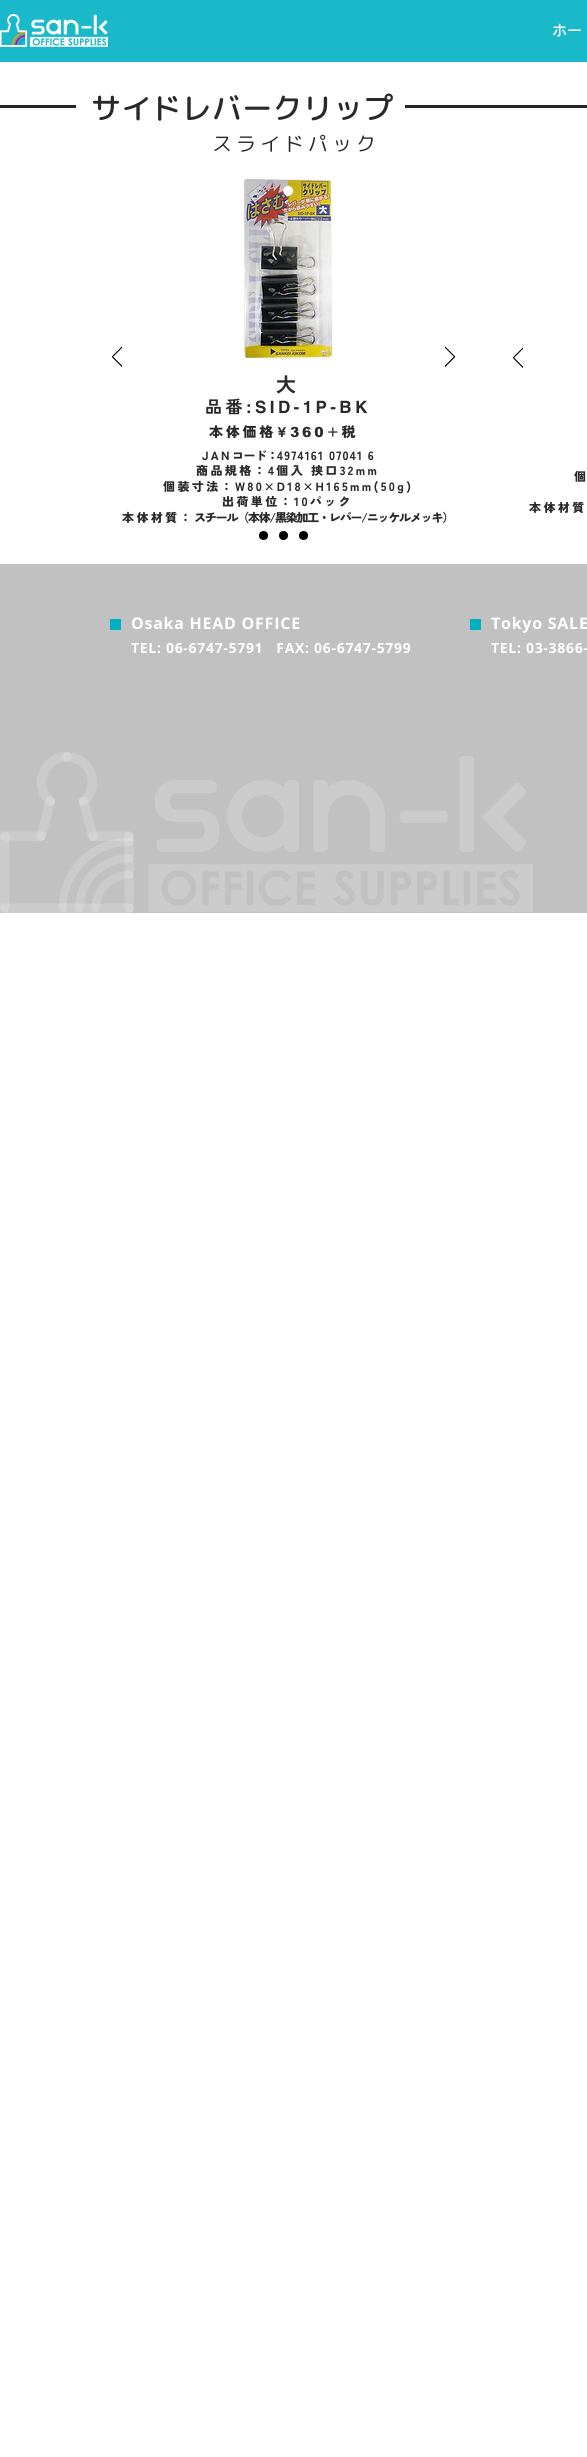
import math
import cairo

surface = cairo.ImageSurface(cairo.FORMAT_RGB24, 587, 2457)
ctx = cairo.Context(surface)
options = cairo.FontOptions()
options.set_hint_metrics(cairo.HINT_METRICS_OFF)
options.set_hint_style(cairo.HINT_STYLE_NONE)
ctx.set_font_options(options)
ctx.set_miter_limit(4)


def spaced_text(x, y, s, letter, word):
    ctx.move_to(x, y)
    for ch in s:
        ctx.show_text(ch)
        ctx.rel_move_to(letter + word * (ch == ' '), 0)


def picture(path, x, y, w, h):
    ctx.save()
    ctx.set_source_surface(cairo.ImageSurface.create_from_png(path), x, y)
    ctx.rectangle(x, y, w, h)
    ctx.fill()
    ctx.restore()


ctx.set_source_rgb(1, 1, 1)
ctx.paint()
ctx.set_source_rgb(0.102, 0.725, 0.792)
ctx.rectangle(0, 0, 587, 62)
ctx.fill()
picture("img1.png", 0, 14, 108, 33)
ctx.select_font_face("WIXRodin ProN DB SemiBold")
ctx.set_font_size(15)
ctx.set_source_rgb(1, 1, 1)
ctx.move_to(552, 36)
ctx.show_text("ホー")
ctx.set_source_rgb(0.157, 0.149, 0.149)
ctx.rectangle(0, 105, 76, 3)
ctx.fill()
ctx.select_font_face("Rounded Mplus 1c Medium")
ctx.set_font_size(30)
ctx.set_source_rgb(0.161, 0.161, 0.161)
spaced_text(91, 119, "サイドレバークリップ", 0.25, 0)
ctx.set_source_rgb(0.157, 0.149, 0.149)
ctx.rectangle(405, 105, 182, 3)
ctx.fill()
ctx.select_font_face("Rounded Mplus 1c")
ctx.set_font_size(20)
ctx.set_source_rgb(0.161, 0.161, 0.161)
spaced_text(212, 151, "スライドパック", 4, 0)
picture("img2.png", 112, 346, 10, 21)
picture("img3.png", 445, 346, 11, 21)
picture("img4.png", 244, 179, 88, 179)
ctx.select_font_face("Zen Kaku Gothic New", cairo.FONT_SLANT_NORMAL, cairo.FONT_WEIGHT_BOLD)
spaced_text(276, 392, "大", 4, 0)
ctx.set_font_size(17)
spaced_text(205, 413, "品番", 3.4, 0)
ctx.select_font_face("helvetica", cairo.FONT_SLANT_NORMAL, cairo.FONT_WEIGHT_BOLD)
spaced_text(246, 413, ":SID-1P-BK", 3.4, 0)
ctx.select_font_face("Zen Kaku Gothic New Black")
ctx.set_font_size(14)
spaced_text(209, 437, "本体価格¥", 2.75, 0)
ctx.select_font_face("arial Black")
spaced_text(290, 437, "360", 2.75, 0)
ctx.select_font_face("Zen Kaku Gothic New Black")
spaced_text(327, 437, "+税", 2.75, 0)
ctx.set_font_size(12)
spaced_text(202, 460, "JAN", 2.4, 0)
spaced_text(232, 460, "コード：", -0.5, 0)
spaced_text(277, 460, "4974161 07041 6", 1.25, 0)
spaced_text(196, 475, "商品規格：4個入 挟口32mm", 2.4, 0)
spaced_text(163, 491, "個装寸法：W80×D18×H165mm(50g)", 2.4, 0)
spaced_text(222, 506, "出荷単位：10パック", 2.4, 0)
spaced_text(122, 522, "本体材質：", 2.4, 0)
spaced_text(194, 522, "スチール（本体/黒染加工・レバー/ニッケルメッキ）", -1.2, 0)
ctx.set_source_rgb(0, 0, 0)
ctx.new_path()
ctx.arc(263.5, 535.5, 4.5, 0, 2 * math.pi)
ctx.fill()
ctx.arc(283.5, 535.5, 4.5, 0, 2 * math.pi)
ctx.fill()
ctx.arc(303.5, 535.5, 4.5, 0, 2 * math.pi)
ctx.fill()
picture("img2.png", 513, 347, 10, 21)
ctx.set_source_rgb(0.161, 0.161, 0.161)
spaced_text(574, 481, "個", 2.4, 0)
spaced_text(529, 512, "本体材質", 2.4, 0)
ctx.set_source_rgb(0.757, 0.757, 0.757)
ctx.rectangle(0, 564, 587, 349)
ctx.fill()
ctx.set_source_rgb(0, 0.694, 0.769)
ctx.rectangle(110, 619, 11, 11)
ctx.fill()
ctx.select_font_face("Open Sans", cairo.FONT_SLANT_NORMAL, cairo.FONT_WEIGHT_BOLD)
ctx.set_font_size(16)
ctx.set_source_rgb(1, 1, 1)
spaced_text(131, 629, "Osaka HEAD OFFICE", 0.75, 0)
ctx.set_font_size(14)
spaced_text(131, 653, "TEL: 06-6747-5791   FAX: 06-6747-5799", 0.7, 0)
ctx.set_source_rgb(0, 0.694, 0.769)
ctx.rectangle(470, 619, 11, 11)
ctx.fill()
ctx.set_font_size(16)
ctx.set_source_rgb(1, 1, 1)
spaced_text(491, 629, "Tokyo SALE", 0.75, 0)
ctx.set_font_size(14)
spaced_text(491, 653, "TEL: 03-3866-", 0.7, 0)
picture("img5.png", 0, 752, 533, 161)
surface.write_to_png("page.png")
